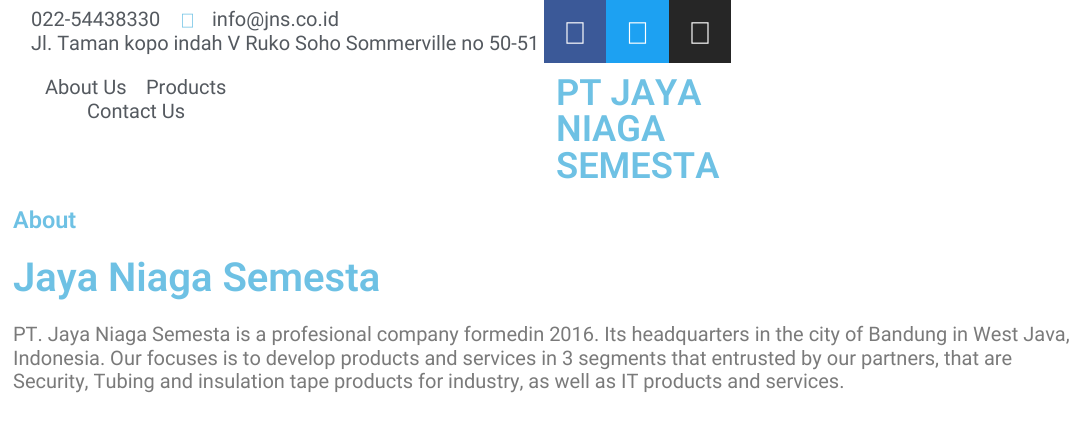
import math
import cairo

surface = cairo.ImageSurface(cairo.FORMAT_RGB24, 1087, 445)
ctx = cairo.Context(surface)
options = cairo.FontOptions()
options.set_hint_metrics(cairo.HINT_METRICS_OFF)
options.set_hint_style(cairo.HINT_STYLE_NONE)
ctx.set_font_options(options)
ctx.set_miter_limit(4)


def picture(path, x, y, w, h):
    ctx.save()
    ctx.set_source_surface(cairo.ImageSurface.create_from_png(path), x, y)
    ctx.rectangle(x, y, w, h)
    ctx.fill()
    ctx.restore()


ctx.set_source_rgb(1, 1, 1)
ctx.paint()
ctx.select_font_face("Roboto")
ctx.set_font_size(20)
ctx.set_source_rgb(0.329, 0.349, 0.373)
ctx.move_to(31, 26)
ctx.show_text("022-54438330")
picture("img1.png", 182, 13, 11, 15)
ctx.move_to(212, 26)
ctx.show_text("info@jns.co.id")
ctx.move_to(31, 50)
ctx.show_text("Jl. Taman kopo indah V Ruko Soho Sommerville no 50-51")
ctx.set_source_rgb(0.231, 0.349, 0.596)
ctx.rectangle(544, 0, 62, 63)
ctx.fill()
picture("img2.png", 566, 22, 18, 22)
ctx.set_source_rgb(0.114, 0.631, 0.949)
ctx.rectangle(606, 0, 63, 63)
ctx.fill()
picture("img3.png", 628, 22, 19, 22)
ctx.set_source_rgb(0.149, 0.149, 0.149)
ctx.rectangle(669, 0, 62, 63)
ctx.fill()
picture("img4.png", 691, 22, 18, 22)
ctx.set_source_rgb(0.329, 0.349, 0.373)
ctx.move_to(45, 94)
ctx.show_text("About Us")
ctx.move_to(146, 94)
ctx.show_text("Products")
ctx.move_to(87, 118)
ctx.show_text("Contact Us")
ctx.select_font_face("Roboto SemiBold")
ctx.set_font_size(36.25)
ctx.set_source_rgb(0.431, 0.757, 0.894)
ctx.move_to(556, 105)
ctx.show_text("PT JAYA")
ctx.move_to(556, 141)
ctx.show_text("NIAGA")
ctx.move_to(556, 178)
ctx.show_text("SEMESTA")
ctx.set_font_size(23.5)
ctx.move_to(13, 228)
ctx.show_text("About")
ctx.set_font_size(40)
ctx.move_to(13, 291)
ctx.show_text("Jaya Niaga Semesta")
ctx.select_font_face("Roboto")
ctx.set_font_size(20)
ctx.set_source_rgb(0.478, 0.478, 0.478)
ctx.move_to(13, 341)
ctx.show_text("PT. Jaya Niaga Semesta is a profesional company formedin 2016. Its headquarters in the city of Bandung in West Java,")
ctx.move_to(13, 365)
ctx.show_text("Indonesia. Our focuses is to develop products and services in 3 segments that entrusted by our partners, that are")
ctx.move_to(13, 388)
ctx.show_text("Security, Tubing and insulation tape products for industry, as well as IT products and services.")
surface.write_to_png("page.png")
